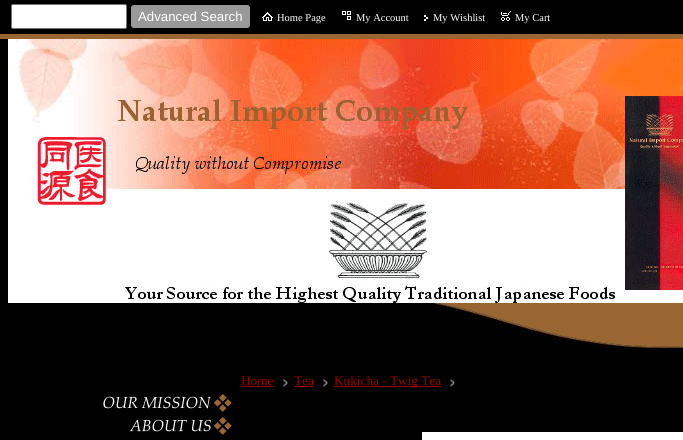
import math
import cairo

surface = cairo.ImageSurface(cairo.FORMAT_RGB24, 683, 440)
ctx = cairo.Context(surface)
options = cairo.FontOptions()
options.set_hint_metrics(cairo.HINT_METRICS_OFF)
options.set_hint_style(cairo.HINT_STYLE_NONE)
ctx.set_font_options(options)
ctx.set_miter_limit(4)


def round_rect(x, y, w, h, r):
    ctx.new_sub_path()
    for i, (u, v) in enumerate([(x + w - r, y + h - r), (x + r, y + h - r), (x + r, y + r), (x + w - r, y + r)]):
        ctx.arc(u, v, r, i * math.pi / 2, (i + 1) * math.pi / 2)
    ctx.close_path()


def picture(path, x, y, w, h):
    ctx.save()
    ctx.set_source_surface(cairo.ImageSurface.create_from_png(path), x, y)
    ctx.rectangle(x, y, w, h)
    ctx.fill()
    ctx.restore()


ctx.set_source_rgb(0, 0, 0)
ctx.paint()
ctx.set_source_rgb(1, 1, 1)
round_rect(11.5, 4.5, 115, 24, 1.5)
ctx.fill_preserve()
ctx.set_source_rgb(0.463, 0.463, 0.463)
ctx.set_line_width(1)
ctx.stroke()
ctx.set_source_rgb(0.6, 0.6, 0.6)
round_rect(131.5, 5.5, 118, 22, 2.5)
ctx.fill_preserve()
ctx.stroke()
ctx.select_font_face("Liberation Sans")
ctx.set_font_size(13.25)
ctx.set_source_rgb(1, 1, 1)
ctx.move_to(138, 21)
ctx.show_text("Advanced Search")
picture("img1.png", 262, 12, 11, 9)
ctx.select_font_face("Liberation Serif")
ctx.set_font_size(10.5)
ctx.move_to(277, 21)
ctx.show_text("Home Page")
picture("img2.png", 342, 11, 9, 9)
ctx.move_to(356, 21)
ctx.show_text("My Account")
picture("img3.png", 424, 15, 4, 6)
ctx.move_to(433, 21)
ctx.show_text("My Wishlist")
picture("img4.png", 501, 11, 10, 10)
ctx.move_to(515, 21)
ctx.show_text("My Cart")
ctx.set_source_rgb(0.6, 0.4, 0.2)
ctx.rectangle(0, 34, 683, 5)
ctx.fill()
picture("img5.png", 8, 39, 675, 264)
picture("img6.png", 0, 303, 683, 45)
picture("img7.png", 283, 378, 5, 9)
ctx.set_font_size(13.25)
ctx.set_source_rgb(0.6, 0, 0)
ctx.move_to(241, 385)
ctx.show_text("Home")
ctx.rectangle(241, 386, 33, 1)
ctx.fill()
picture("img7.png", 323, 378, 5, 9)
ctx.move_to(294, 385)
ctx.show_text("Tea")
ctx.rectangle(294, 386, 20, 1)
ctx.fill()
picture("img7.png", 450, 378, 5, 9)
ctx.rectangle(334, 386, 107, 1)
ctx.fill()
ctx.move_to(334, 385)
ctx.show_text("Kukicha - Twig Tea")
ctx.set_source_rgb(1, 1, 1)
ctx.rectangle(422, 432, 261, 8)
ctx.fill()
picture("img8.png", 103, 394, 129, 18)
picture("img9.png", 130, 417, 102, 18)
surface.write_to_png("page.png")
